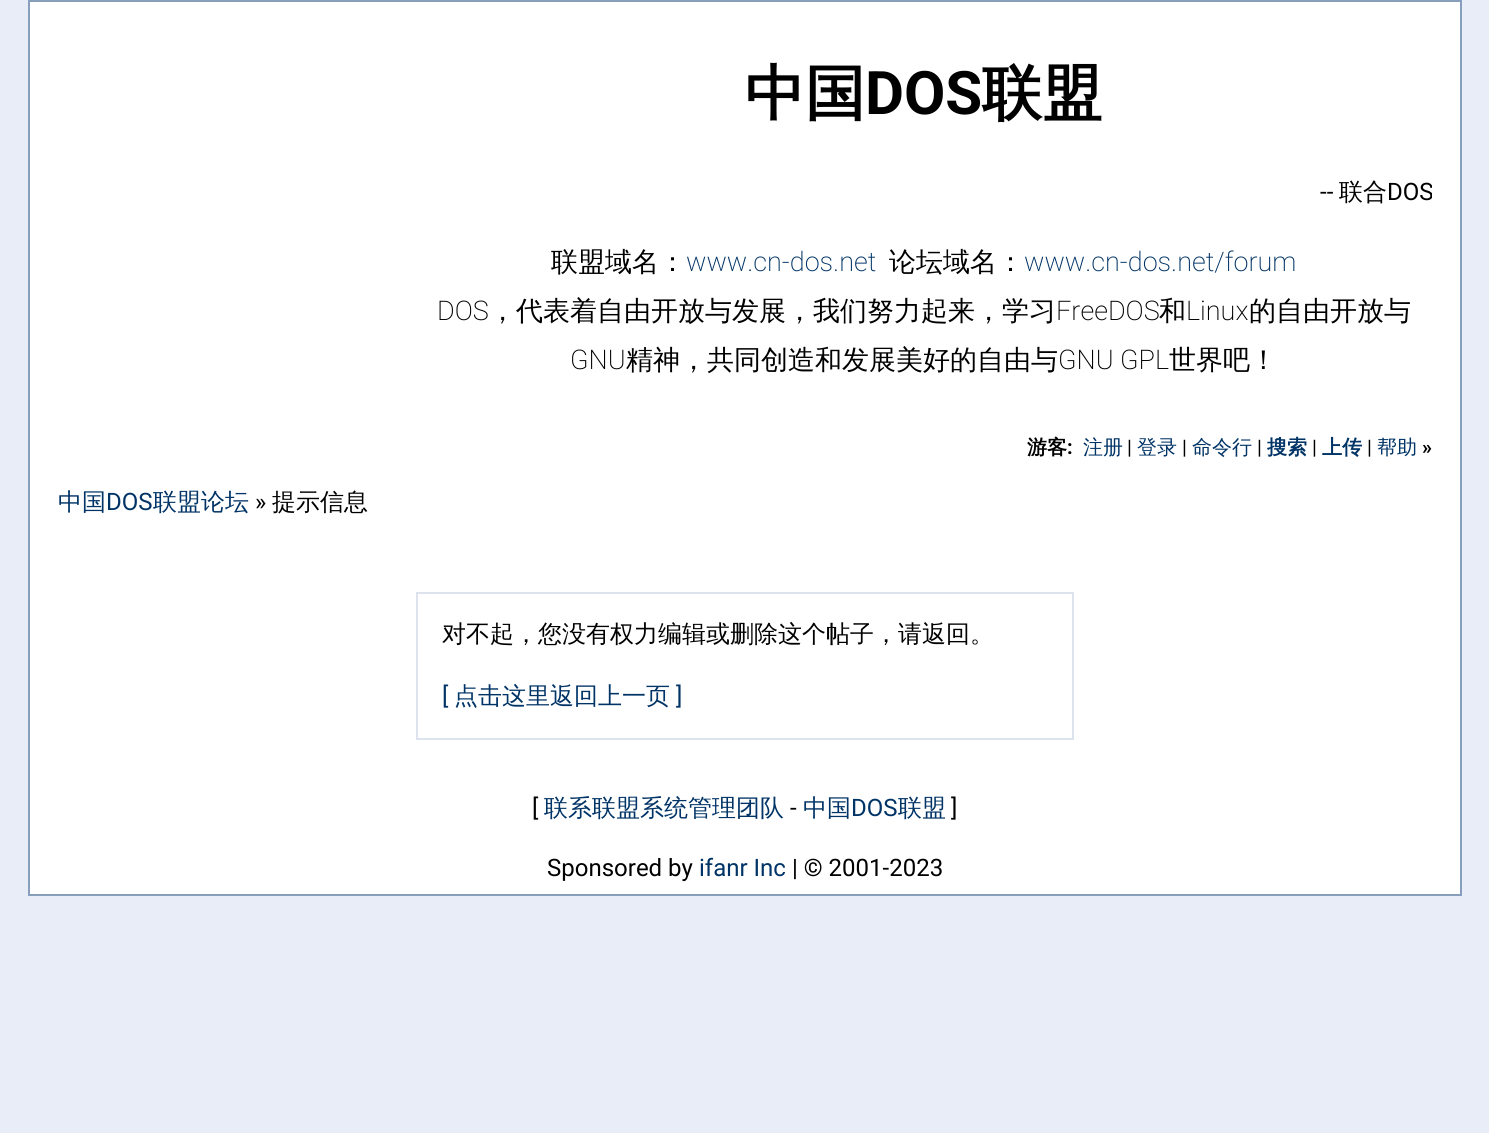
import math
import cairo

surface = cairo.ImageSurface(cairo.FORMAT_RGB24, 1489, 1133)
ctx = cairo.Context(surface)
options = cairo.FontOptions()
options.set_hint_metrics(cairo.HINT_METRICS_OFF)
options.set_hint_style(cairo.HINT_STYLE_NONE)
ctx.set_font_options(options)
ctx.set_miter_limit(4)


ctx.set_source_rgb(0.914, 0.929, 0.969)
ctx.paint()
ctx.set_source_rgb(1, 1, 1)
ctx.rectangle(29, 1, 1432, 894)
ctx.fill_preserve()
ctx.set_source_rgb(0.529, 0.62, 0.737)
ctx.stroke()
ctx.select_font_face("WenQuanYi Zen Hei", cairo.FONT_SLANT_NORMAL, cairo.FONT_WEIGHT_BOLD)
ctx.set_font_size(60)
ctx.set_source_rgb(0, 0, 0)
ctx.move_to(745, 114)
ctx.show_text("中国")
ctx.select_font_face("Roboto", cairo.FONT_SLANT_NORMAL, cairo.FONT_WEIGHT_BOLD)
ctx.move_to(865, 114)
ctx.show_text("DOS")
ctx.select_font_face("WenQuanYi Zen Hei", cairo.FONT_SLANT_NORMAL, cairo.FONT_WEIGHT_BOLD)
ctx.move_to(982, 114)
ctx.show_text("联盟")
ctx.select_font_face("Roboto")
ctx.set_font_size(24)
ctx.move_to(1320, 200)
ctx.show_text("--")
ctx.select_font_face("WenQuanYi Zen Hei Medium")
ctx.move_to(1339, 200)
ctx.show_text("联合")
ctx.save()
ctx.rectangle(416, 176, 1016, 34)
ctx.clip()
ctx.select_font_face("Roboto")
ctx.move_to(1387, 200)
ctx.show_text("DOS")
ctx.restore()
ctx.set_font_size(27)
ctx.move_to(551, 271)
ctx.show_text("联盟域名：")
ctx.select_font_face("Roboto ExtraLight")
ctx.set_source_rgb(0, 0.2, 0.4)
ctx.move_to(686, 271)
ctx.show_text("www.cn-dos.net")
ctx.select_font_face("WenQuanYi Zen Hei Medium")
ctx.set_source_rgb(0, 0, 0)
ctx.move_to(889, 271)
ctx.show_text("论坛域名：")
ctx.select_font_face("Roboto ExtraLight")
ctx.set_source_rgb(0, 0.2, 0.4)
ctx.move_to(1024, 271)
ctx.show_text("www.cn-dos.net/forum")
ctx.set_source_rgb(0, 0, 0)
ctx.move_to(437, 320)
ctx.show_text("DOS")
ctx.select_font_face("WenQuanYi Zen Hei Medium")
ctx.move_to(489, 320)
ctx.show_text("，代表着自由开放与发展，我们努力起来，学习")
ctx.select_font_face("Roboto ExtraLight")
ctx.move_to(1056, 320)
ctx.show_text("FreeDOS")
ctx.select_font_face("WenQuanYi Zen Hei Medium")
ctx.move_to(1159, 320)
ctx.show_text("和")
ctx.select_font_face("Roboto ExtraLight")
ctx.move_to(1186, 320)
ctx.show_text("Linux")
ctx.select_font_face("WenQuanYi Zen Hei Medium")
ctx.move_to(1249, 320)
ctx.show_text("的自由开放与")
ctx.select_font_face("Roboto ExtraLight")
ctx.move_to(570, 369)
ctx.show_text("GNU")
ctx.select_font_face("WenQuanYi Zen Hei Medium")
ctx.move_to(626, 369)
ctx.show_text("精神，共同创造和发展美好的自由与")
ctx.select_font_face("Roboto ExtraLight")
ctx.move_to(1058, 369)
ctx.show_text("GNU GPL")
ctx.select_font_face("WenQuanYi Zen Hei Medium")
ctx.move_to(1169, 369)
ctx.show_text("世界吧！")
ctx.select_font_face("WenQuanYi Zen Hei", cairo.FONT_SLANT_NORMAL, cairo.FONT_WEIGHT_BOLD)
ctx.set_font_size(20)
ctx.move_to(1027, 454)
ctx.show_text("游客")
ctx.select_font_face("Roboto", cairo.FONT_SLANT_NORMAL, cairo.FONT_WEIGHT_BOLD)
ctx.move_to(1067, 454)
ctx.show_text(":")
ctx.select_font_face("WenQuanYi Zen Hei Medium")
ctx.set_source_rgb(0, 0.2, 0.4)
ctx.move_to(1083, 454)
ctx.show_text("注册")
ctx.select_font_face("Roboto")
ctx.set_source_rgb(0, 0, 0)
ctx.move_to(1127, 454)
ctx.show_text("|")
ctx.select_font_face("WenQuanYi Zen Hei Medium")
ctx.set_source_rgb(0, 0.2, 0.4)
ctx.move_to(1137, 454)
ctx.show_text("登录")
ctx.select_font_face("Roboto")
ctx.set_source_rgb(0, 0, 0)
ctx.move_to(1182, 454)
ctx.show_text("|")
ctx.select_font_face("WenQuanYi Zen Hei Medium")
ctx.set_source_rgb(0, 0.2, 0.4)
ctx.move_to(1192, 454)
ctx.show_text("命令行")
ctx.select_font_face("Roboto")
ctx.set_source_rgb(0, 0, 0)
ctx.move_to(1257, 454)
ctx.show_text("|")
ctx.select_font_face("WenQuanYi Zen Hei", cairo.FONT_SLANT_NORMAL, cairo.FONT_WEIGHT_BOLD)
ctx.set_source_rgb(0, 0.2, 0.4)
ctx.move_to(1267, 454)
ctx.show_text("搜索")
ctx.select_font_face("Roboto")
ctx.set_source_rgb(0, 0, 0)
ctx.move_to(1312, 454)
ctx.show_text("|")
ctx.select_font_face("WenQuanYi Zen Hei", cairo.FONT_SLANT_NORMAL, cairo.FONT_WEIGHT_BOLD)
ctx.set_source_rgb(0, 0.2, 0.4)
ctx.move_to(1322, 454)
ctx.show_text("上传")
ctx.select_font_face("Roboto")
ctx.set_source_rgb(0, 0, 0)
ctx.move_to(1367, 454)
ctx.show_text("|")
ctx.select_font_face("WenQuanYi Zen Hei Medium")
ctx.set_source_rgb(0, 0.2, 0.4)
ctx.move_to(1377, 454)
ctx.show_text("帮助")
ctx.select_font_face("Roboto", cairo.FONT_SLANT_NORMAL, cairo.FONT_WEIGHT_BOLD)
ctx.set_source_rgb(0, 0, 0)
ctx.move_to(1422, 454)
ctx.show_text("»")
ctx.select_font_face("WenQuanYi Zen Hei Medium")
ctx.set_font_size(24)
ctx.set_source_rgb(0, 0.2, 0.4)
ctx.move_to(58, 510)
ctx.show_text("中国")
ctx.select_font_face("Roboto")
ctx.move_to(106, 510)
ctx.show_text("DOS")
ctx.select_font_face("WenQuanYi Zen Hei Medium")
ctx.move_to(153, 510)
ctx.show_text("联盟论坛")
ctx.select_font_face("Roboto")
ctx.set_source_rgb(0, 0, 0)
ctx.move_to(255, 510)
ctx.show_text("»")
ctx.select_font_face("WenQuanYi Zen Hei Medium")
ctx.move_to(272, 510)
ctx.show_text("提示信息")
ctx.rectangle(417, 593, 656, 146)
ctx.set_source_rgb(0.867, 0.89, 0.925)
ctx.stroke()
ctx.set_source_rgb(0, 0, 0)
ctx.move_to(442, 642)
ctx.show_text("对不起，您没有权力编辑或删除这个帖子，请返回。")
ctx.select_font_face("Roboto")
ctx.set_source_rgb(0, 0.2, 0.4)
ctx.move_to(442, 704)
ctx.show_text("[")
ctx.select_font_face("WenQuanYi Zen Hei Medium")
ctx.move_to(454, 704)
ctx.show_text("点击这里返回上一页")
ctx.select_font_face("Roboto")
ctx.move_to(676, 704)
ctx.show_text("]")
ctx.set_source_rgb(0, 0, 0)
ctx.move_to(532, 816)
ctx.show_text("[")
ctx.select_font_face("WenQuanYi Zen Hei Medium")
ctx.set_source_rgb(0, 0.2, 0.4)
ctx.move_to(544, 816)
ctx.show_text("联系联盟系统管理团队")
ctx.select_font_face("Roboto")
ctx.set_source_rgb(0, 0, 0)
ctx.move_to(790, 816)
ctx.show_text("-")
ctx.select_font_face("WenQuanYi Zen Hei Medium")
ctx.set_source_rgb(0, 0.2, 0.4)
ctx.move_to(803, 816)
ctx.show_text("中国")
ctx.select_font_face("Roboto")
ctx.move_to(851, 816)
ctx.show_text("DOS")
ctx.select_font_face("WenQuanYi Zen Hei Medium")
ctx.move_to(898, 816)
ctx.show_text("联盟")
ctx.select_font_face("Roboto")
ctx.set_source_rgb(0, 0, 0)
ctx.move_to(951, 816)
ctx.show_text("]")
ctx.move_to(547, 876)
ctx.show_text("Sponsored by")
ctx.set_source_rgb(0, 0.2, 0.4)
ctx.move_to(699, 876)
ctx.show_text("ifanr Inc")
ctx.set_source_rgb(0, 0, 0)
ctx.move_to(792, 876)
ctx.show_text("| © 2001-2023")
surface.write_to_png("page.png")
